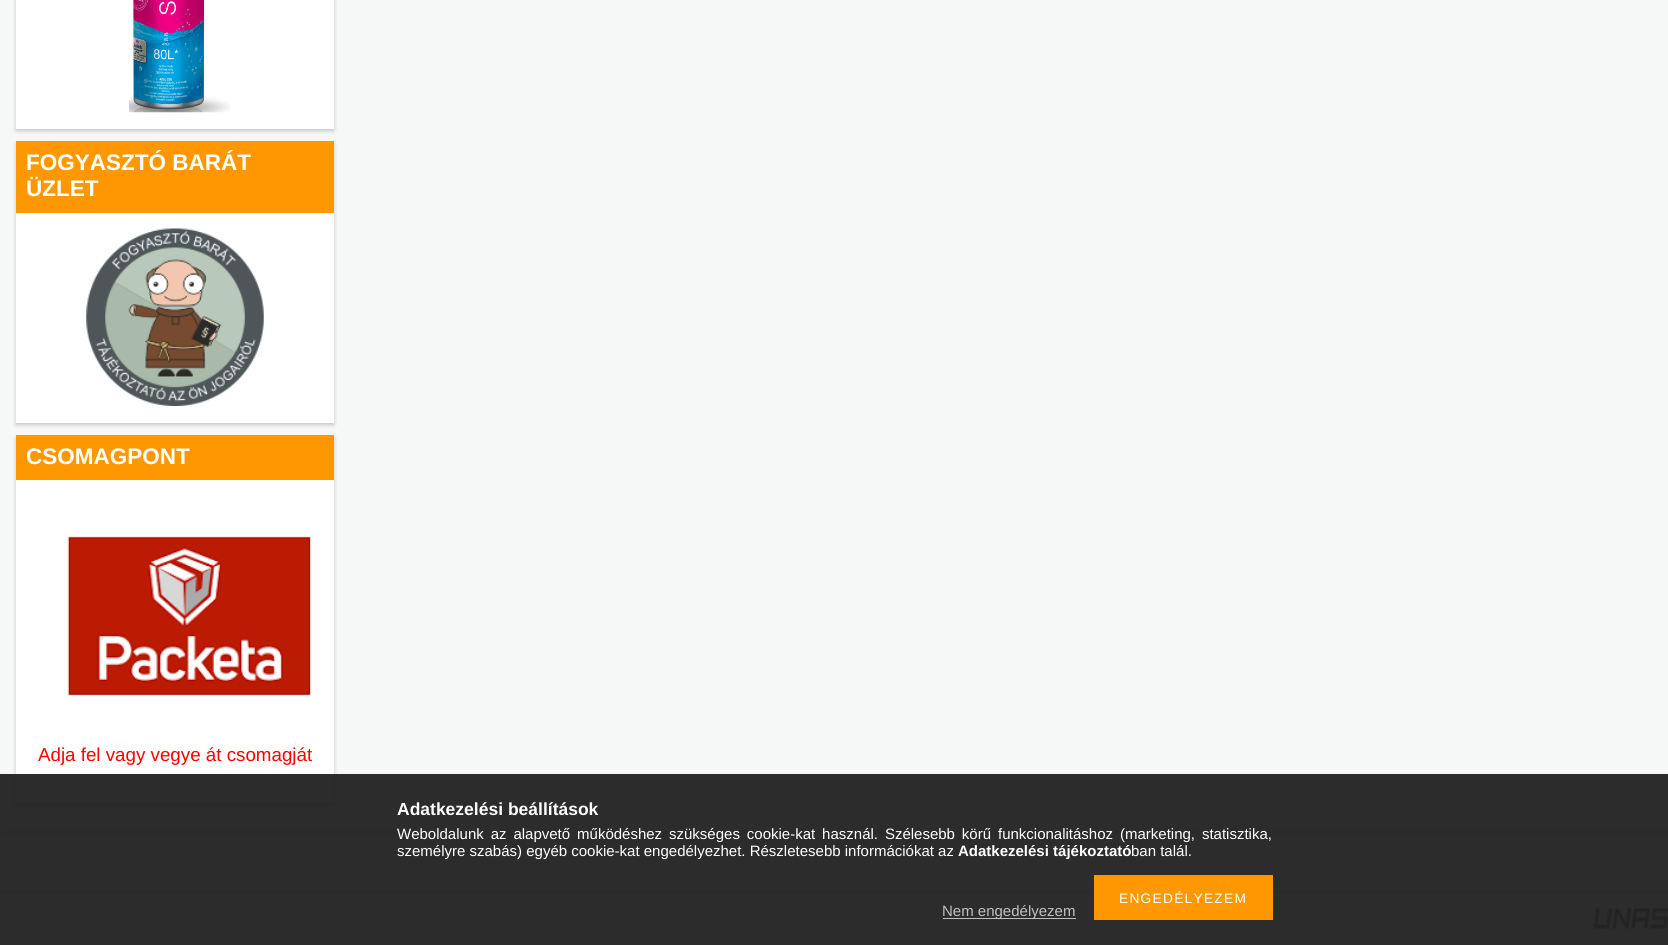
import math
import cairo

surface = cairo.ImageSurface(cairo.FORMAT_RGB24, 1668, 945)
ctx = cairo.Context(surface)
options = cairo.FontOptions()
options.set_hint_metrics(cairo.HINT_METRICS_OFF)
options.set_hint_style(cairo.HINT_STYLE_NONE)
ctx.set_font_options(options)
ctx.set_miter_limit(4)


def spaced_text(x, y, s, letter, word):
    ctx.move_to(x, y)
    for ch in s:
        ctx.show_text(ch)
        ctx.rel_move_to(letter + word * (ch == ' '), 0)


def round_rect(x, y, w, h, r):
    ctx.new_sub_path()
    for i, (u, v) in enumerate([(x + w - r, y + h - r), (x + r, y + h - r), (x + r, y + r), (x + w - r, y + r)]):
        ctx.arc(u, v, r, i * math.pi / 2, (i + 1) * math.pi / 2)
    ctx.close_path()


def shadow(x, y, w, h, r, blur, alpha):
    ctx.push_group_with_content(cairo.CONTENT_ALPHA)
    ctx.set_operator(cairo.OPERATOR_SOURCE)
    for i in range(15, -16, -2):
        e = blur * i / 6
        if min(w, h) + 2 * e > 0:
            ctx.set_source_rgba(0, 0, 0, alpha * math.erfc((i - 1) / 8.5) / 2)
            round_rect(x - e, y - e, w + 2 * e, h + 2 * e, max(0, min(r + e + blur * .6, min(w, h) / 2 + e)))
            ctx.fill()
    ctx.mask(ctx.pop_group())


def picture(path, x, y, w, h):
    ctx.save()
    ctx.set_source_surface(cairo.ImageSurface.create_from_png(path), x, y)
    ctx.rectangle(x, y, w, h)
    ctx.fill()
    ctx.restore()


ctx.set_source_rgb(0.961, 0.965, 0.965)
ctx.paint()
ctx.set_source_rgb(0, 0, 0)
shadow(16, -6, 318, 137, 0, 2, 0.2)
ctx.set_source_rgb(1, 1, 1)
ctx.rectangle(16, 0, 318, 129)
ctx.fill()
picture("img1.png", 129, 0, 102, 113)
ctx.set_source_rgb(0, 0, 0)
shadow(16, 144, 318, 281, 0, 2, 0.2)
ctx.set_source_rgb(1, 0.596, 0)
ctx.rectangle(16, 141, 318, 72)
ctx.fill()
ctx.select_font_face("Liberation Sans", cairo.FONT_SLANT_NORMAL, cairo.FONT_WEIGHT_BOLD)
ctx.set_font_size(22.5)
ctx.set_source_rgb(1, 1, 1)
ctx.move_to(26, 170)
ctx.show_text("FOGYASZTÓ BARÁT")
ctx.move_to(26, 196)
ctx.show_text("ÜZLET")
ctx.rectangle(16, 213, 318, 210)
ctx.fill()
picture("img2.png", 86, 228, 178, 178)
ctx.set_source_rgb(0, 0, 0)
shadow(16, 438, 318, 367, 0, 2, 0.2)
ctx.set_source_rgb(1, 0.596, 0)
ctx.rectangle(16, 435, 318, 45)
ctx.fill()
ctx.set_source_rgb(1, 1, 1)
ctx.move_to(26, 464)
ctx.show_text("CSOMAGPONT")
ctx.rectangle(16, 480, 318, 323)
ctx.fill()
picture("img3.png", 67, 536, 245, 160)
ctx.select_font_face("Liberation Sans")
ctx.set_font_size(18.75)
ctx.set_source_rgb(1, 0, 0)
ctx.move_to(38, 761)
ctx.show_text("Adja fel vagy vegye át csomagját")
ctx.set_source_rgb(0, 0, 0)
shadow(0, 834, 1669, 56, 0, 3, 0.1)
ctx.set_source_rgb(1, 1, 1)
ctx.rectangle(0, 834, 1668, 56)
ctx.fill()
picture("img4.png", 1593, 908, 75, 21)
ctx.set_source_rgba(0.133, 0.133, 0.133, 0.95)
ctx.rectangle(0, 774, 1668, 171)
ctx.fill()
ctx.select_font_face("Liberation Sans", cairo.FONT_SLANT_NORMAL, cairo.FONT_WEIGHT_BOLD)
ctx.set_font_size(17.5)
ctx.set_source_rgb(1, 1, 1)
ctx.move_to(397, 815)
ctx.show_text("Adatkezelési beállítások")
ctx.select_font_face("Liberation Sans")
ctx.set_font_size(15)
spaced_text(397, 839, "Weboldalunk az alapvető működéshez szükséges cookie-kat használ. Szélesebb körű funkcionalitáshoz (marketing, statisztika,", 0, 2.75)
ctx.move_to(397, 856)
ctx.show_text("személyre szabás) egyéb cookie-kat engedélyezhet. Részletesebb információkat az")
ctx.select_font_face("Liberation Sans", cairo.FONT_SLANT_NORMAL, cairo.FONT_WEIGHT_BOLD)
ctx.move_to(958, 856)
ctx.show_text("Adatkezelési tájékoztató")
ctx.select_font_face("Liberation Sans")
ctx.move_to(1131, 856)
ctx.show_text("ban talál.")
ctx.set_source_rgb(1, 0.596, 0)
ctx.rectangle(1094, 875, 179, 45)
ctx.fill()
ctx.set_font_size(13.75)
ctx.set_source_rgb(1, 1, 1)
spaced_text(1119, 903, "ENGEDÉLYEZEM", 1.25, 0)
ctx.set_source_rgb(0.753, 0.753, 0.753)
ctx.rectangle(943, 918, 133, 1)
ctx.fill()
ctx.set_font_size(15)
ctx.move_to(942, 916)
ctx.show_text("Nem engedélyezem")
surface.write_to_png("page.png")
